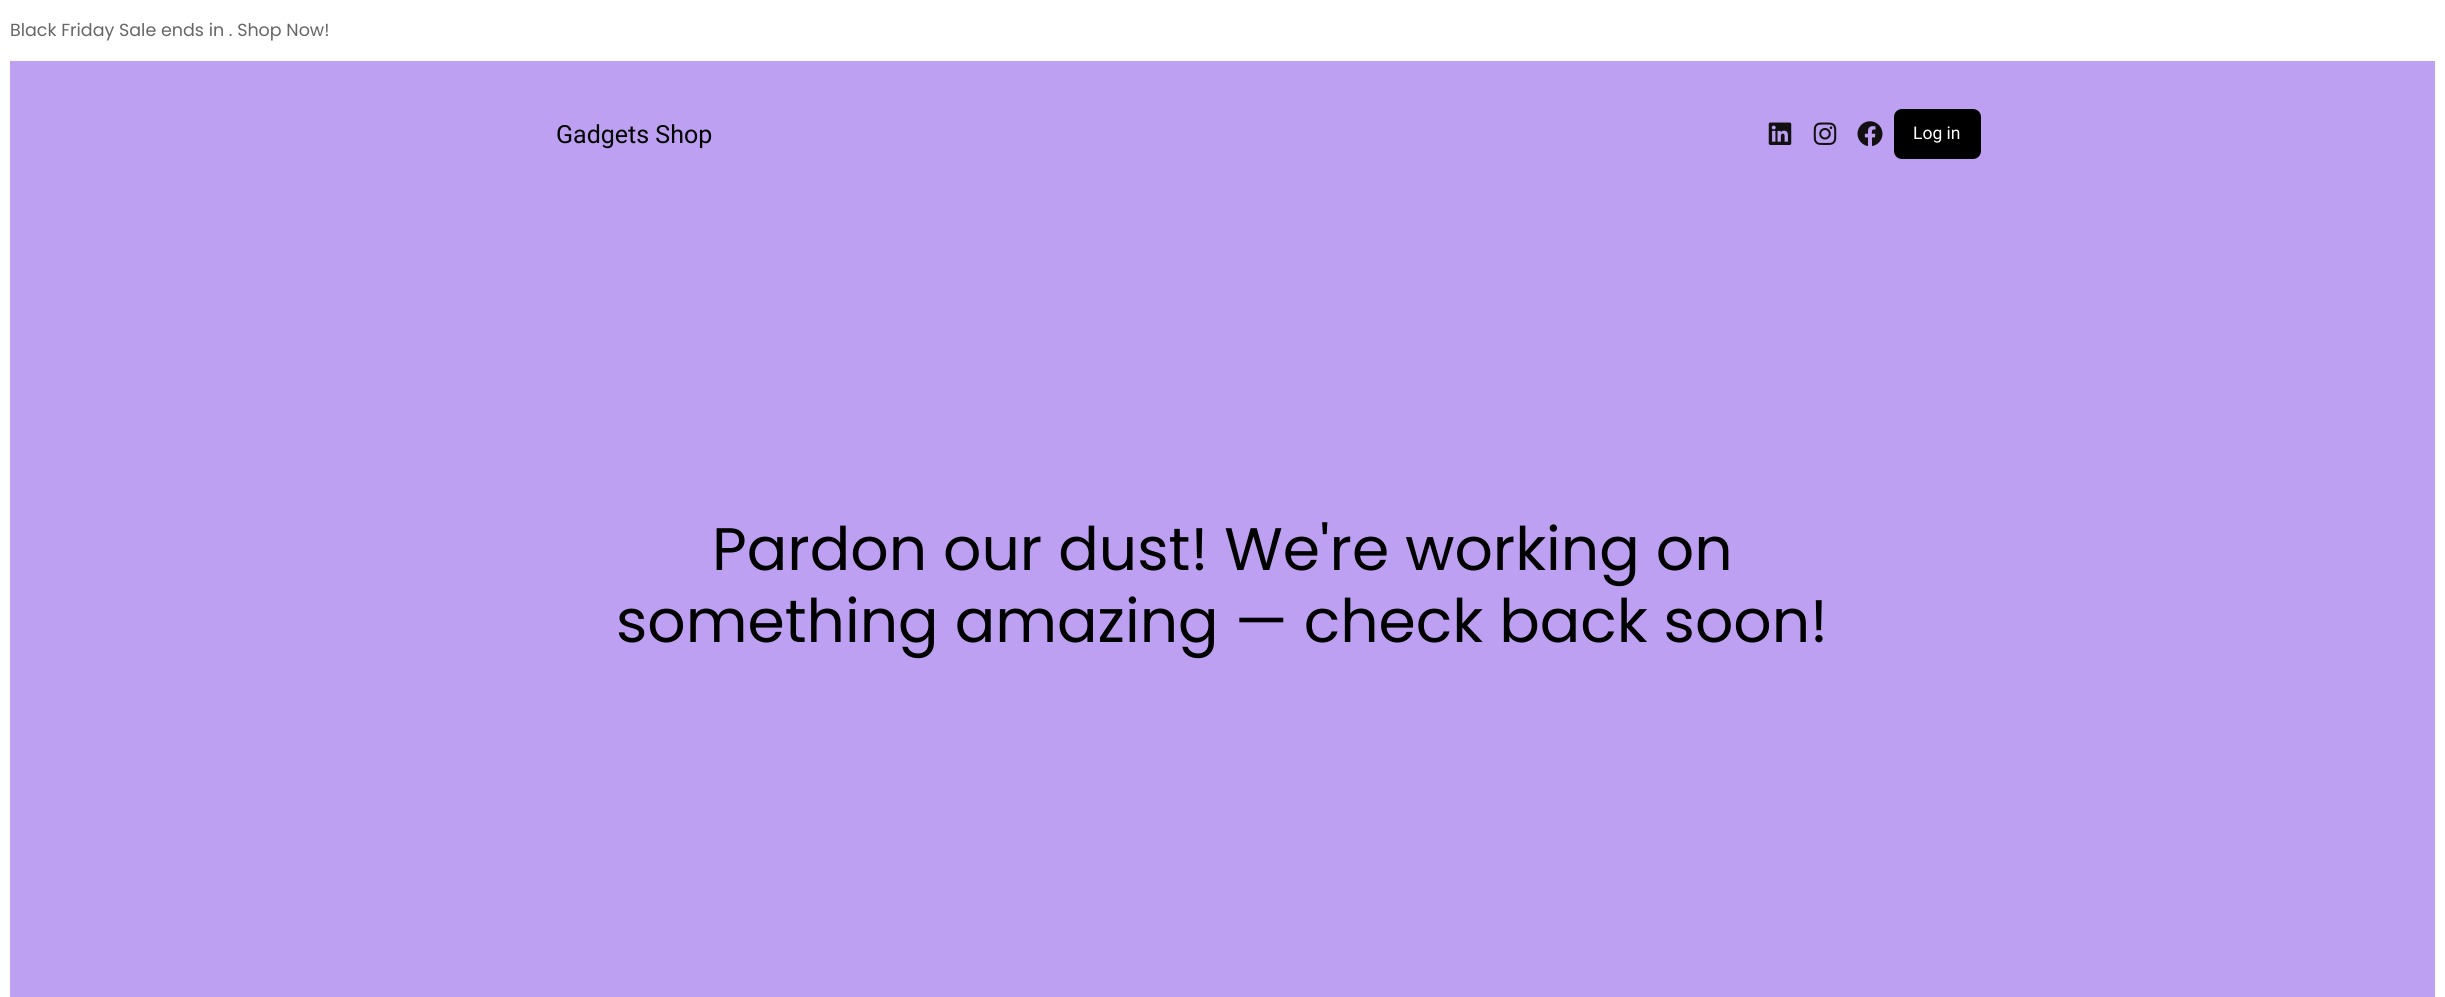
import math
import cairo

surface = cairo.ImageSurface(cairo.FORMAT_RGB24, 2445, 997)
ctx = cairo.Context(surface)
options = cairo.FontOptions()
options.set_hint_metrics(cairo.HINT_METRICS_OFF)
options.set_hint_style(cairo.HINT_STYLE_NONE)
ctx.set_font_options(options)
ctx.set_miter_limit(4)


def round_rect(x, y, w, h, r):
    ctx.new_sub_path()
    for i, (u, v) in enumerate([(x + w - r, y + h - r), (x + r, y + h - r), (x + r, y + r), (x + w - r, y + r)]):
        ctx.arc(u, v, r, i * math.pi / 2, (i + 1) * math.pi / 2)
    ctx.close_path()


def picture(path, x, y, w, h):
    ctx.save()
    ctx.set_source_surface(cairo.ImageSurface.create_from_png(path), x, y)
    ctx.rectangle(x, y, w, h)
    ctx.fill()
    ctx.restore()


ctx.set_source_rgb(1, 1, 1)
ctx.paint()
ctx.select_font_face("Poppins")
ctx.set_font_size(17.5)
ctx.set_source_rgb(0.4, 0.4, 0.4)
ctx.move_to(10, 36)
ctx.show_text("Black Friday Sale ends in . Shop Now!")
ctx.set_source_rgb(0.745, 0.627, 0.949)
ctx.rectangle(10, 61, 2425, 936)
ctx.fill()
ctx.select_font_face("Roboto")
ctx.set_font_size(25)
ctx.set_source_rgb(0, 0, 0)
ctx.move_to(556, 143)
ctx.show_text("Gadgets Shop")
picture("img1.png", 1768, 122, 24, 23)
picture("img2.png", 1813, 122, 24, 23)
picture("img3.png", 1857, 121, 26, 26)
round_rect(1894, 109, 87, 50, 8)
ctx.fill()
ctx.set_font_size(17.5)
ctx.set_source_rgb(1, 1, 1)
ctx.move_to(1913, 139)
ctx.show_text("Log in")
ctx.select_font_face("Poppins")
ctx.set_font_size(60)
ctx.set_source_rgb(0, 0, 0)
ctx.move_to(712, 570)
ctx.show_text("Pardon our dust! We're working on")
ctx.move_to(616, 642)
ctx.show_text("something amazing — check back soon!")
surface.write_to_png("page.png")
